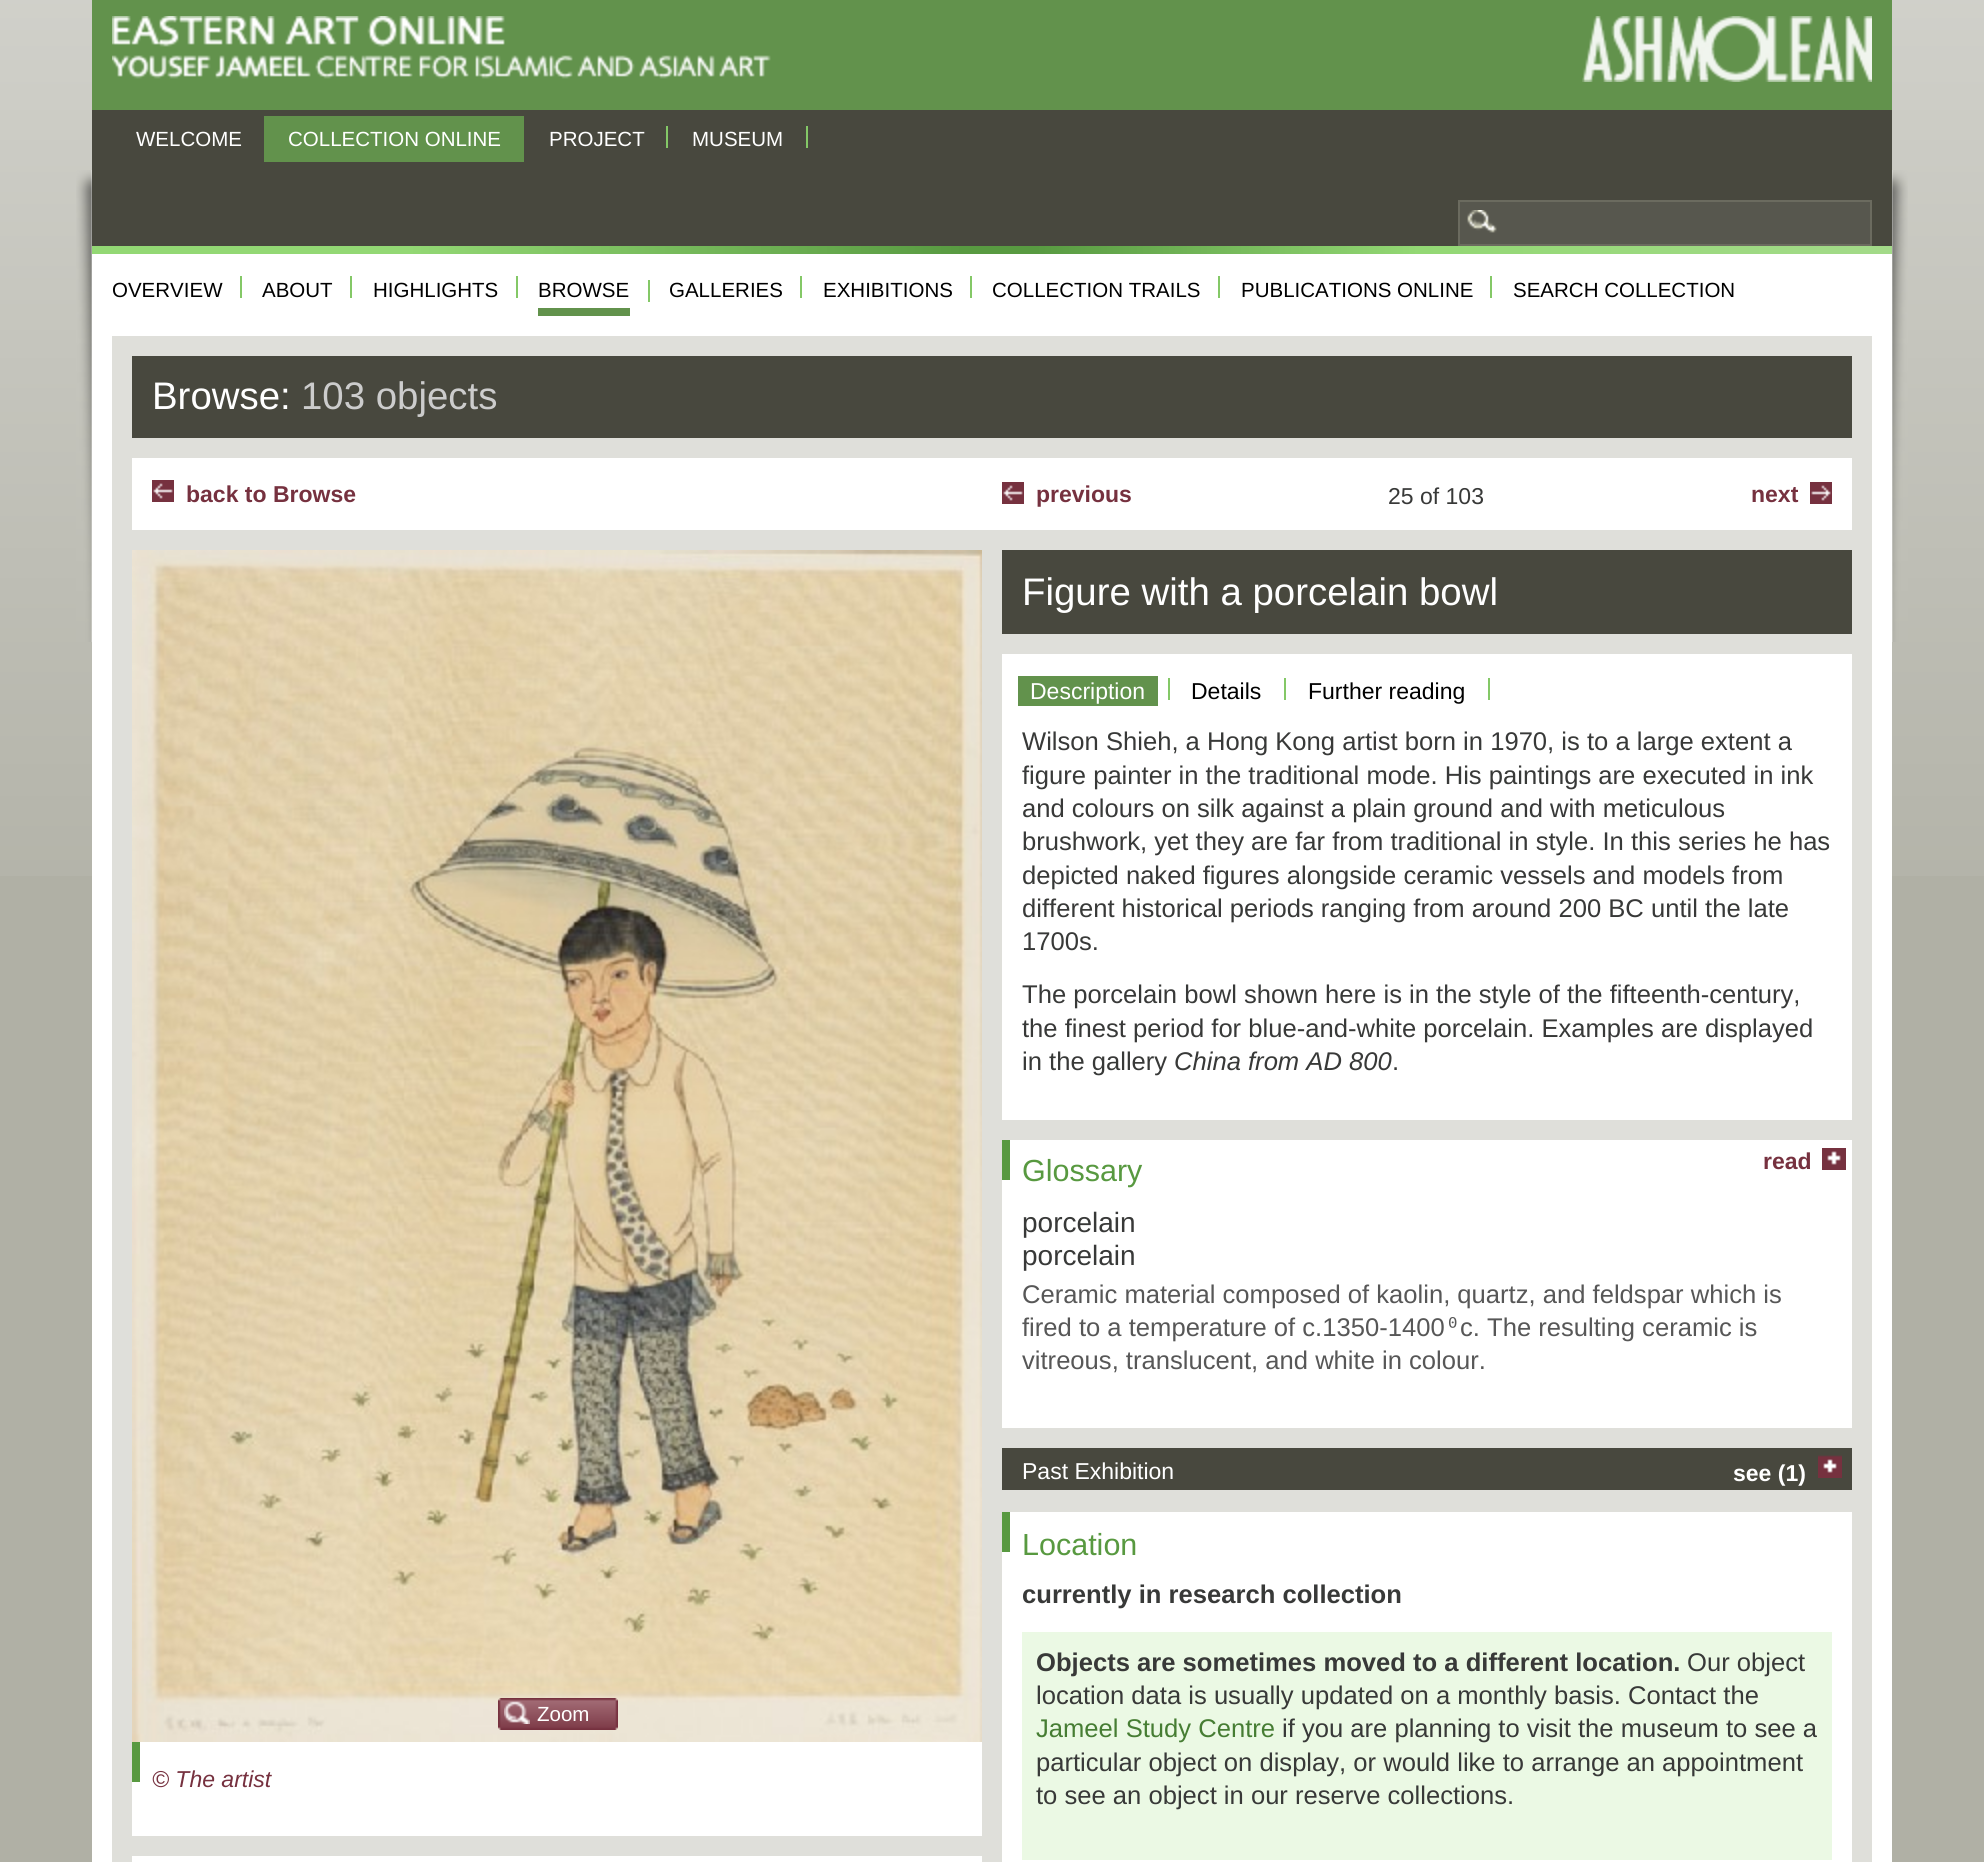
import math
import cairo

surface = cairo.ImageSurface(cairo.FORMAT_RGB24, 1984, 1862)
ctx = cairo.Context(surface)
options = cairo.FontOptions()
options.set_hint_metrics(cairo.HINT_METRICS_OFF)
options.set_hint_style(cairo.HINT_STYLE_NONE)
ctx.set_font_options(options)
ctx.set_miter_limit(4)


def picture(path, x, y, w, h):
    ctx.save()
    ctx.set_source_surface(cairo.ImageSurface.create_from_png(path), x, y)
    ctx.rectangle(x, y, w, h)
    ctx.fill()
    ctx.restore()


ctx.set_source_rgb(0.69, 0.69, 0.647)
ctx.paint()
picture("img1.png", 0, 0, 1984, 876)
picture("img2.png", 76, 170, 1832, 472)
ctx.set_source_rgb(0.384, 0.573, 0.298)
ctx.rectangle(92, 0, 1800, 110)
ctx.fill()
picture("img3.png", 112, 16, 659, 63)
picture("img4.png", 1582, 16, 290, 66)
ctx.set_source_rgb(0.282, 0.282, 0.243)
ctx.rectangle(92, 110, 1800, 136)
ctx.fill()
ctx.select_font_face("Liberation Sans")
ctx.set_font_size(20.5)
ctx.set_source_rgb(1, 1, 1)
ctx.move_to(136, 146)
ctx.show_text("WELCOME")
ctx.set_source_rgb(0.384, 0.573, 0.298)
ctx.rectangle(264, 116, 260, 46)
ctx.fill()
ctx.set_source_rgb(1, 1, 1)
ctx.move_to(288, 146)
ctx.show_text("COLLECTION ONLINE")
ctx.set_source_rgb(0.518, 0.784, 0.404)
ctx.rectangle(666, 126, 2, 22)
ctx.fill()
ctx.set_source_rgb(1, 1, 1)
ctx.move_to(549, 146)
ctx.show_text("PROJECT")
ctx.set_source_rgb(0.518, 0.784, 0.404)
ctx.rectangle(806, 126, 2, 22)
ctx.fill()
ctx.set_source_rgb(1, 1, 1)
ctx.move_to(692, 146)
ctx.show_text("MUSEUM")
ctx.set_source_rgb(0.341, 0.341, 0.306)
ctx.rectangle(1460, 202, 410, 42)
ctx.fill()
picture("img5.png", 1467, 210, 30, 23)
ctx.rectangle(1459, 201, 412, 44)
ctx.set_source_rgb(0.42, 0.42, 0.373)
ctx.stroke()
ctx.set_source_rgb(1, 1, 1)
ctx.rectangle(92, 254, 1800, 1608)
ctx.fill()
picture("img6.png", 92, 246, 1800, 8)
ctx.set_source_rgb(0.518, 0.784, 0.404)
ctx.rectangle(240, 276, 2, 22)
ctx.fill()
ctx.set_source_rgb(0, 0, 0)
ctx.move_to(112, 297)
ctx.show_text("OVERVIEW")
ctx.set_source_rgb(0.518, 0.784, 0.404)
ctx.rectangle(350, 276, 2, 22)
ctx.fill()
ctx.set_source_rgb(0, 0, 0)
ctx.move_to(262, 297)
ctx.show_text("ABOUT")
ctx.set_source_rgb(0.518, 0.784, 0.404)
ctx.rectangle(516, 276, 2, 22)
ctx.fill()
ctx.set_source_rgb(0, 0, 0)
ctx.move_to(373, 297)
ctx.show_text("HIGHLIGHTS")
ctx.set_source_rgb(0.518, 0.784, 0.404)
ctx.rectangle(648, 280, 2, 22)
ctx.fill()
ctx.set_source_rgb(0.384, 0.573, 0.298)
ctx.rectangle(538, 308, 92, 8)
ctx.fill()
ctx.set_source_rgb(0, 0, 0)
ctx.move_to(538, 297)
ctx.show_text("BROWSE")
ctx.set_source_rgb(0.518, 0.784, 0.404)
ctx.rectangle(800, 276, 2, 22)
ctx.fill()
ctx.set_source_rgb(0, 0, 0)
ctx.move_to(669, 297)
ctx.show_text("GALLERIES")
ctx.set_source_rgb(0.518, 0.784, 0.404)
ctx.rectangle(970, 276, 2, 22)
ctx.fill()
ctx.set_source_rgb(0, 0, 0)
ctx.move_to(823, 297)
ctx.show_text("EXHIBITIONS")
ctx.set_source_rgb(0.518, 0.784, 0.404)
ctx.rectangle(1218, 276, 2, 22)
ctx.fill()
ctx.set_source_rgb(0, 0, 0)
ctx.move_to(992, 297)
ctx.show_text("COLLECTION TRAILS")
ctx.set_source_rgb(0.518, 0.784, 0.404)
ctx.rectangle(1490, 276, 2, 22)
ctx.fill()
ctx.set_source_rgb(0, 0, 0)
ctx.move_to(1241, 297)
ctx.show_text("PUBLICATIONS ONLINE")
ctx.move_to(1513, 297)
ctx.show_text("SEARCH COLLECTION")
ctx.set_source_rgb(0.875, 0.875, 0.855)
ctx.rectangle(112, 336, 1760, 1526)
ctx.fill()
ctx.set_source_rgb(0.282, 0.282, 0.243)
ctx.rectangle(132, 356, 1720, 82)
ctx.fill()
ctx.set_font_size(38.4)
ctx.set_source_rgb(1, 1, 1)
ctx.move_to(152, 409)
ctx.show_text("Browse:")
ctx.set_source_rgb(0.8, 0.8, 0.8)
ctx.move_to(301, 409)
ctx.show_text("103 objects")
ctx.set_source_rgb(1, 1, 1)
ctx.rectangle(132, 458, 1720, 72)
ctx.fill()
picture("img7.png", 152, 480, 22, 22)
ctx.select_font_face("Liberation Sans", cairo.FONT_SLANT_NORMAL, cairo.FONT_WEIGHT_BOLD)
ctx.set_font_size(23)
ctx.set_source_rgb(0.463, 0.192, 0.247)
ctx.move_to(186, 502)
ctx.show_text("back to Browse")
picture("img7.png", 1002, 482, 22, 22)
ctx.move_to(1036, 502)
ctx.show_text("previous")
ctx.select_font_face("Liberation Sans")
ctx.set_source_rgb(0.22, 0.224, 0.22)
ctx.move_to(1388, 504)
ctx.show_text("25 of 103")
ctx.select_font_face("Liberation Sans", cairo.FONT_SLANT_NORMAL, cairo.FONT_WEIGHT_BOLD)
ctx.set_source_rgb(0.463, 0.192, 0.247)
ctx.move_to(1751, 502)
ctx.show_text("next")
picture("img8.png", 1810, 482, 22, 22)
ctx.set_source_rgb(1, 1, 1)
ctx.rectangle(132, 1742, 850, 120)
ctx.fill()
picture("img9.png", 132, 550, 850, 1192)
picture("img10.png", 498, 1698, 120, 32)
picture("img11.png", 504, 1701, 26, 23)
ctx.select_font_face("Liberation Sans")
ctx.set_font_size(20.5)
ctx.move_to(537, 1721)
ctx.show_text("Zoom")
ctx.set_source_rgb(0.345, 0.6, 0.251)
ctx.rectangle(132, 1742, 8, 40)
ctx.fill()
ctx.set_source_rgb(0.875, 0.875, 0.855)
ctx.rectangle(132, 1836, 850, 20)
ctx.fill()
ctx.select_font_face("Liberation Sans", cairo.FONT_SLANT_ITALIC)
ctx.set_font_size(23)
ctx.set_source_rgb(0.463, 0.192, 0.247)
ctx.move_to(152, 1787)
ctx.show_text("© The artist")
ctx.set_source_rgb(1, 1, 1)
ctx.rectangle(1002, 654, 850, 1208)
ctx.fill()
ctx.set_source_rgb(0.282, 0.282, 0.243)
ctx.rectangle(1002, 550, 850, 84)
ctx.fill()
ctx.select_font_face("Liberation Sans")
ctx.set_font_size(38.4)
ctx.set_source_rgb(1, 1, 1)
ctx.move_to(1022, 605)
ctx.show_text("Figure with a porcelain bowl")
ctx.set_source_rgb(0.875, 0.875, 0.855)
ctx.rectangle(1002, 1120, 850, 20)
ctx.fill()
ctx.set_source_rgb(0.518, 0.784, 0.404)
ctx.rectangle(1168, 678, 2, 22)
ctx.fill()
ctx.set_source_rgb(0.384, 0.573, 0.298)
ctx.rectangle(1018, 676, 140, 30)
ctx.fill()
ctx.set_font_size(23)
ctx.set_source_rgb(1, 1, 1)
ctx.move_to(1030, 699)
ctx.show_text("Description")
ctx.set_source_rgb(0.518, 0.784, 0.404)
ctx.rectangle(1284, 678, 2, 22)
ctx.fill()
ctx.set_source_rgb(0, 0, 0)
ctx.move_to(1191, 699)
ctx.show_text("Details")
ctx.set_source_rgb(0.518, 0.784, 0.404)
ctx.rectangle(1488, 678, 2, 22)
ctx.fill()
ctx.set_source_rgb(0, 0, 0)
ctx.move_to(1308, 699)
ctx.show_text("Further reading")
ctx.set_font_size(25.6)
ctx.set_source_rgb(0.22, 0.224, 0.22)
ctx.move_to(1022, 750)
ctx.show_text("Wilson Shieh, a Hong Kong artist born in 1970, is to a large extent a")
ctx.move_to(1022, 784)
ctx.show_text("figure painter in the traditional mode. His paintings are executed in ink")
ctx.move_to(1022, 817)
ctx.show_text("and colours on silk against a plain ground and with meticulous")
ctx.move_to(1022, 850)
ctx.show_text("brushwork, yet they are far from traditional in style. In this series he has")
ctx.move_to(1022, 884)
ctx.show_text("depicted naked figures alongside ceramic vessels and models from")
ctx.move_to(1022, 917)
ctx.show_text("different historical periods ranging from around 200 BC until the late")
ctx.move_to(1022, 950)
ctx.show_text("1700s.")
ctx.move_to(1022, 1003)
ctx.show_text("The porcelain bowl shown here is in the style of the fifteenth-century,")
ctx.move_to(1022, 1037)
ctx.show_text("the finest period for blue-and-white porcelain. Examples are displayed")
ctx.move_to(1022, 1070)
ctx.show_text("in the gallery")
ctx.select_font_face("Liberation Sans", cairo.FONT_SLANT_ITALIC)
ctx.move_to(1174, 1070)
ctx.show_text("China from AD 800")
ctx.select_font_face("Liberation Sans")
ctx.move_to(1392, 1070)
ctx.show_text(".")
ctx.set_source_rgb(0.345, 0.6, 0.251)
ctx.rectangle(1002, 1140, 8, 40)
ctx.fill()
ctx.set_source_rgb(0.875, 0.875, 0.855)
ctx.rectangle(1002, 1428, 850, 20)
ctx.fill()
ctx.set_font_size(30.5)
ctx.set_source_rgb(0.345, 0.6, 0.251)
ctx.move_to(1022, 1181)
ctx.show_text("Glossary")
ctx.select_font_face("Liberation Sans", cairo.FONT_SLANT_NORMAL, cairo.FONT_WEIGHT_BOLD)
ctx.set_font_size(23)
ctx.set_source_rgb(0.463, 0.192, 0.247)
ctx.move_to(1763, 1169)
ctx.show_text("read")
picture("img12.png", 1822, 1148, 24, 22)
ctx.select_font_face("Liberation Sans")
ctx.set_font_size(28)
ctx.set_source_rgb(0.22, 0.224, 0.22)
ctx.move_to(1022, 1232)
ctx.show_text("porcelain")
ctx.move_to(1022, 1265)
ctx.show_text("porcelain")
ctx.set_font_size(25.6)
ctx.set_source_rgb(0.341, 0.341, 0.341)
ctx.move_to(1022, 1303)
ctx.show_text("Ceramic material composed of kaolin, quartz, and feldspar which is")
ctx.move_to(1022, 1336)
ctx.show_text("fired to a temperature of c.1350-1400")
ctx.select_font_face("DejaVu Sans Mono")
ctx.move_to(1445, 1336)
ctx.show_text("⁰")
ctx.select_font_face("Liberation Sans")
ctx.move_to(1460, 1336)
ctx.show_text("c. The resulting ceramic is")
ctx.move_to(1022, 1369)
ctx.show_text("vitreous, translucent, and white in colour.")
ctx.set_source_rgb(0.282, 0.282, 0.243)
ctx.rectangle(1002, 1448, 850, 42)
ctx.fill()
ctx.set_font_size(23)
ctx.set_source_rgb(1, 1, 1)
ctx.move_to(1022, 1479)
ctx.show_text("Past Exhibition")
picture("img13.png", 1818, 1455, 24, 23)
ctx.select_font_face("Liberation Sans", cairo.FONT_SLANT_NORMAL, cairo.FONT_WEIGHT_BOLD)
ctx.move_to(1733, 1481)
ctx.show_text("see (1)")
ctx.set_source_rgb(0.875, 0.875, 0.855)
ctx.rectangle(1002, 1490, 850, 22)
ctx.fill()
ctx.set_source_rgb(0.345, 0.6, 0.251)
ctx.rectangle(1002, 1512, 8, 40)
ctx.fill()
ctx.select_font_face("Liberation Sans")
ctx.set_font_size(30.5)
ctx.move_to(1022, 1555)
ctx.show_text("Location")
ctx.select_font_face("Liberation Sans", cairo.FONT_SLANT_NORMAL, cairo.FONT_WEIGHT_BOLD)
ctx.set_font_size(25.6)
ctx.set_source_rgb(0.22, 0.224, 0.22)
ctx.move_to(1022, 1603)
ctx.show_text("currently in research collection")
ctx.set_source_rgb(0.918, 0.973, 0.894)
ctx.rectangle(1022, 1632, 810, 228)
ctx.fill()
ctx.set_source_rgb(0.22, 0.224, 0.22)
ctx.move_to(1036, 1671)
ctx.show_text("Objects are sometimes moved to a different location.")
ctx.select_font_face("Liberation Sans")
ctx.move_to(1687, 1671)
ctx.show_text("Our object")
ctx.move_to(1036, 1704)
ctx.show_text("location data is usually updated on a monthly basis. Contact the")
ctx.set_source_rgb(0.275, 0.49, 0.2)
ctx.move_to(1036, 1737)
ctx.show_text("Jameel Study Centre")
ctx.set_source_rgb(0.22, 0.224, 0.22)
ctx.move_to(1282, 1737)
ctx.show_text("if you are planning to visit the museum to see a")
ctx.move_to(1036, 1771)
ctx.show_text("particular object on display, or would like to arrange an appointment")
ctx.move_to(1036, 1804)
ctx.show_text("to see an object in our reserve collections.")
surface.write_to_png("page.png")
